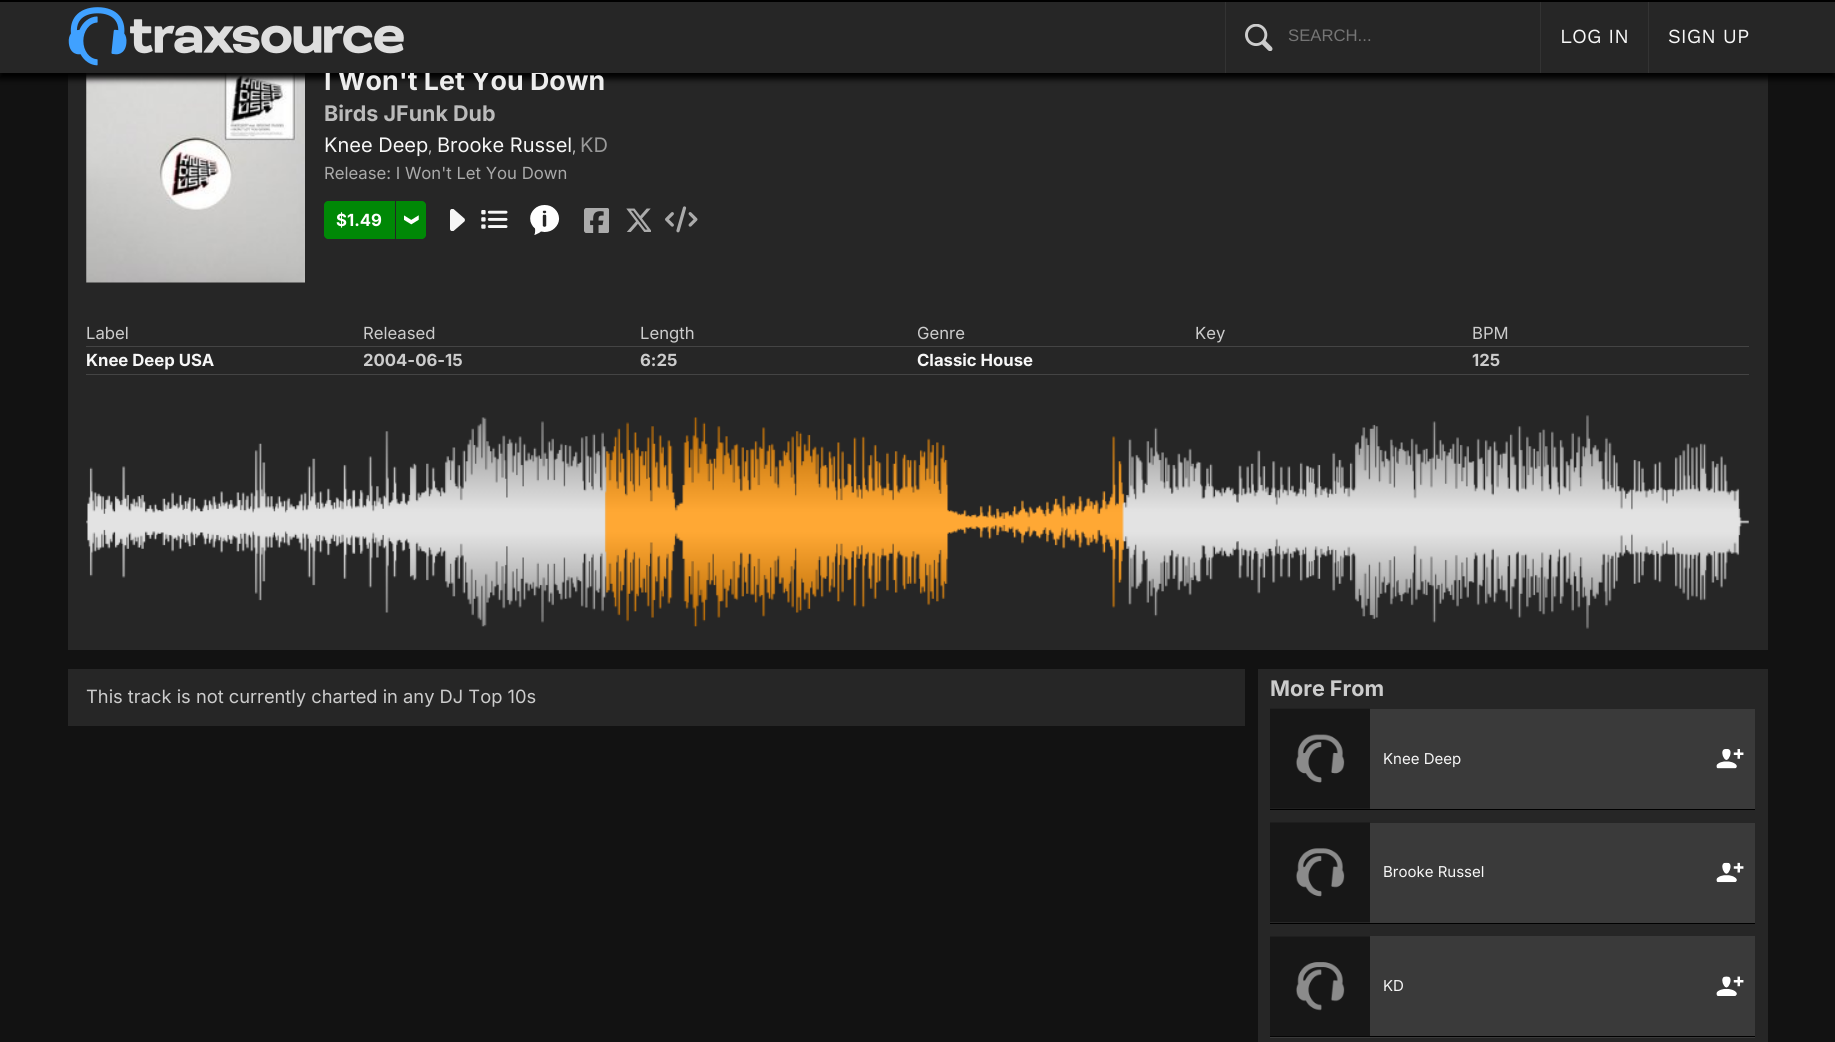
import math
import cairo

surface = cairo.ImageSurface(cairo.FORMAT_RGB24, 1835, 1042)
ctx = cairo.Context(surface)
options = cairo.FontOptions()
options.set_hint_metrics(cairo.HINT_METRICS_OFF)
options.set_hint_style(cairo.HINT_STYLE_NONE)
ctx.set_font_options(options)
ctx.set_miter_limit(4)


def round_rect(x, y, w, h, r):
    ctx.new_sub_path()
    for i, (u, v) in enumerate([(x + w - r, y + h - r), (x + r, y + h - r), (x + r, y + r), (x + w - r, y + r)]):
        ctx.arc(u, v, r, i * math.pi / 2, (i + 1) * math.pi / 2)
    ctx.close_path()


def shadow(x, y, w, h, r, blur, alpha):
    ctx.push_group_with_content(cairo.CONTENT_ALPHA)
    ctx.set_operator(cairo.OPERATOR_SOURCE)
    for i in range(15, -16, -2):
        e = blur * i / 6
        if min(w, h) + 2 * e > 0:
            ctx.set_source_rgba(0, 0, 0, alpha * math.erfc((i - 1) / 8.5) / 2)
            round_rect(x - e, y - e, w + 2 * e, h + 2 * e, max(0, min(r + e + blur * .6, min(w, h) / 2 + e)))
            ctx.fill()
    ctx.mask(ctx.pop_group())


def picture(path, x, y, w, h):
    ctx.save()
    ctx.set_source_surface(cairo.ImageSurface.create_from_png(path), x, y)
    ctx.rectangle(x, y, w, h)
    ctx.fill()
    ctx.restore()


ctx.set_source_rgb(0.071, 0.071, 0.071)
ctx.paint()
ctx.set_source_rgb(0.149, 0.149, 0.149)
ctx.rectangle(68, 73, 1700, 577)
ctx.fill()
picture("img3.png", 86, 73, 219, 210)
ctx.set_source_rgb(0, 0, 0)
shadow(-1, 4, 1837, 75, 0, 3, 1)
ctx.select_font_face("Inter", cairo.FONT_SLANT_NORMAL, cairo.FONT_WEIGHT_BOLD)
ctx.set_font_size(26.75)
ctx.set_source_rgb(0.933, 0.933, 0.933)
ctx.move_to(324, 90)
ctx.show_text("I Won't Let You Down")
ctx.set_source_rgb(0.149, 0.149, 0.149)
ctx.rectangle(0, 2, 1835, 71)
ctx.fill()
ctx.set_source_rgb(0.2, 0.2, 0.2)
ctx.rectangle(1225, 0, 1, 73)
ctx.fill()
ctx.rectangle(1540, 0, 1, 73)
ctx.fill()
ctx.rectangle(1648, 0, 1, 73)
ctx.fill()
ctx.set_source_rgb(0, 0, 0)
ctx.rectangle(0, 0, 1835, 2)
ctx.fill()
picture("img1.png", 68, 7, 336, 59)
picture("img2.png", 1245, 24, 28, 27)
ctx.select_font_face("Liberation Sans")
ctx.set_font_size(16.7)
ctx.set_source_rgb(0.459, 0.459, 0.459)
ctx.move_to(1288, 41)
ctx.show_text("SEARCH...")
ctx.select_font_face("Work Sans")
ctx.set_font_size(20)
ctx.set_source_rgb(0.965, 0.965, 0.965)
ctx.move_to(1560, 43)
ctx.show_text("LOG IN")
ctx.move_to(1668, 43)
ctx.show_text("SIGN UP")
ctx.select_font_face("Inter", cairo.FONT_SLANT_NORMAL, cairo.FONT_WEIGHT_BOLD)
ctx.set_font_size(21.5)
ctx.set_source_rgb(0.733, 0.733, 0.733)
ctx.move_to(324, 121)
ctx.show_text("Birds JFunk Dub")
ctx.select_font_face("Inter")
ctx.set_font_size(20)
ctx.set_source_rgb(0.965, 0.965, 0.965)
ctx.move_to(324, 152)
ctx.show_text("Knee Deep")
ctx.move_to(437, 152)
ctx.show_text("Brooke Russel")
ctx.set_source_rgb(0.6, 0.6, 0.6)
ctx.move_to(580, 152)
ctx.show_text("KD")
ctx.set_font_size(15)
ctx.set_source_rgb(0.8, 0.8, 0.8)
ctx.move_to(428, 152)
ctx.show_text(",")
ctx.move_to(572, 152)
ctx.show_text(",")
ctx.set_font_size(16.7)
ctx.set_source_rgb(0.667, 0.667, 0.667)
ctx.move_to(324, 179)
ctx.show_text("Release: I Won't Let You Down")
ctx.set_source_rgb(0, 0.533, 0.024)
ctx.new_path()
ctx.move_to(328, 201)
ctx.line_to(395, 201)
ctx.line_to(395, 239)
ctx.line_to(328, 239)
ctx.curve_to(326, 239, 324, 237, 324, 235)
ctx.line_to(324, 205)
ctx.curve_to(324, 203, 326, 201, 328, 201)
ctx.close_path()
ctx.fill()
ctx.select_font_face("Inter", cairo.FONT_SLANT_NORMAL, cairo.FONT_WEIGHT_BOLD)
ctx.set_source_rgb(1, 1, 1)
ctx.move_to(336, 226)
ctx.show_text("$1.49")
ctx.set_source_rgb(0, 0.533, 0.024)
ctx.new_path()
ctx.move_to(396, 201)
ctx.line_to(422, 201)
ctx.curve_to(424, 201, 426, 203, 426, 205)
ctx.line_to(426, 235)
ctx.curve_to(426, 237, 424, 239, 422, 239)
ctx.line_to(396, 239)
ctx.close_path()
ctx.fill()
picture("img4.png", 404, 215, 15, 10)
picture("img5.png", 450, 209, 15, 22)
picture("img6.png", 481, 210, 27, 19)
picture("img7.png", 530, 205, 30, 30)
picture("img8.png", 584, 208, 25, 25)
picture("img9.png", 626, 208, 25, 24)
picture("img10.png", 665, 206, 33, 27)
ctx.set_source_rgb(0.267, 0.267, 0.267)
ctx.rectangle(86, 346, 1663, 1)
ctx.fill()
ctx.select_font_face("Inter")
ctx.set_source_rgb(0.8, 0.8, 0.8)
ctx.move_to(86, 339)
ctx.show_text("Label")
ctx.move_to(363, 339)
ctx.show_text("Released")
ctx.move_to(640, 339)
ctx.show_text("Length")
ctx.move_to(917, 339)
ctx.show_text("Genre")
ctx.move_to(1195, 339)
ctx.show_text("Key")
ctx.move_to(1472, 339)
ctx.show_text("BPM")
ctx.set_source_rgb(0.267, 0.267, 0.267)
ctx.rectangle(86, 374, 1663, 1)
ctx.fill()
ctx.select_font_face("Inter", cairo.FONT_SLANT_NORMAL, cairo.FONT_WEIGHT_BOLD)
ctx.set_source_rgb(0.965, 0.965, 0.965)
ctx.move_to(86, 366)
ctx.show_text("Knee Deep USA")
ctx.set_source_rgb(0.8, 0.8, 0.8)
ctx.move_to(363, 366)
ctx.show_text("2004-06-15")
ctx.move_to(640, 366)
ctx.show_text("6:25")
ctx.set_source_rgb(0.965, 0.965, 0.965)
ctx.move_to(917, 366)
ctx.show_text("Classic House")
ctx.set_source_rgb(0.8, 0.8, 0.8)
ctx.move_to(1472, 366)
ctx.show_text("125")
picture("img11.png", 86, 415, 1663, 214)
ctx.set_source_rgb(0.149, 0.149, 0.149)
ctx.rectangle(68, 669, 1177, 57)
ctx.fill()
ctx.select_font_face("Inter")
ctx.set_font_size(18.3)
ctx.set_source_rgb(0.8, 0.8, 0.8)
ctx.move_to(86, 703)
ctx.show_text("This track is not currently charted in any DJ Top 10s")
ctx.set_source_rgb(0.149, 0.149, 0.149)
ctx.rectangle(1258, 669, 510, 373)
ctx.fill()
ctx.select_font_face("Inter", cairo.FONT_SLANT_NORMAL, cairo.FONT_WEIGHT_BOLD)
ctx.set_font_size(21.5)
ctx.set_source_rgb(0.8, 0.8, 0.8)
ctx.move_to(1270, 696)
ctx.show_text("More From")
ctx.set_source_rgb(0.227, 0.227, 0.227)
ctx.rectangle(1270, 709, 485, 100)
ctx.fill()
ctx.set_source_rgb(0, 0, 0)
ctx.rectangle(1270, 809, 485, 1)
ctx.fill()
picture("img12.png", 1270, 708, 100, 101)
ctx.select_font_face("Inter")
ctx.set_font_size(15)
ctx.set_source_rgb(0.965, 0.965, 0.965)
ctx.move_to(1383, 764)
ctx.show_text("Knee Deep")
picture("img13.png", 1716, 749, 28, 20)
ctx.set_source_rgb(0.227, 0.227, 0.227)
ctx.rectangle(1270, 823, 485, 100)
ctx.fill()
ctx.set_source_rgb(0, 0, 0)
ctx.rectangle(1270, 923, 485, 1)
ctx.fill()
picture("img14.png", 1270, 822, 100, 101)
ctx.set_source_rgb(0.965, 0.965, 0.965)
ctx.move_to(1383, 877)
ctx.show_text("Brooke Russel")
picture("img15.png", 1716, 862, 28, 21)
ctx.set_source_rgb(0.227, 0.227, 0.227)
ctx.rectangle(1270, 936, 485, 102)
ctx.fill()
ctx.set_source_rgb(0, 0, 0)
ctx.rectangle(1270, 1036, 485, 1)
ctx.fill()
picture("img16.png", 1270, 936, 100, 101)
ctx.set_source_rgb(0.965, 0.965, 0.965)
ctx.move_to(1383, 991)
ctx.show_text("KD")
picture("img17.png", 1716, 976, 28, 20)
surface.write_to_png("page.png")
